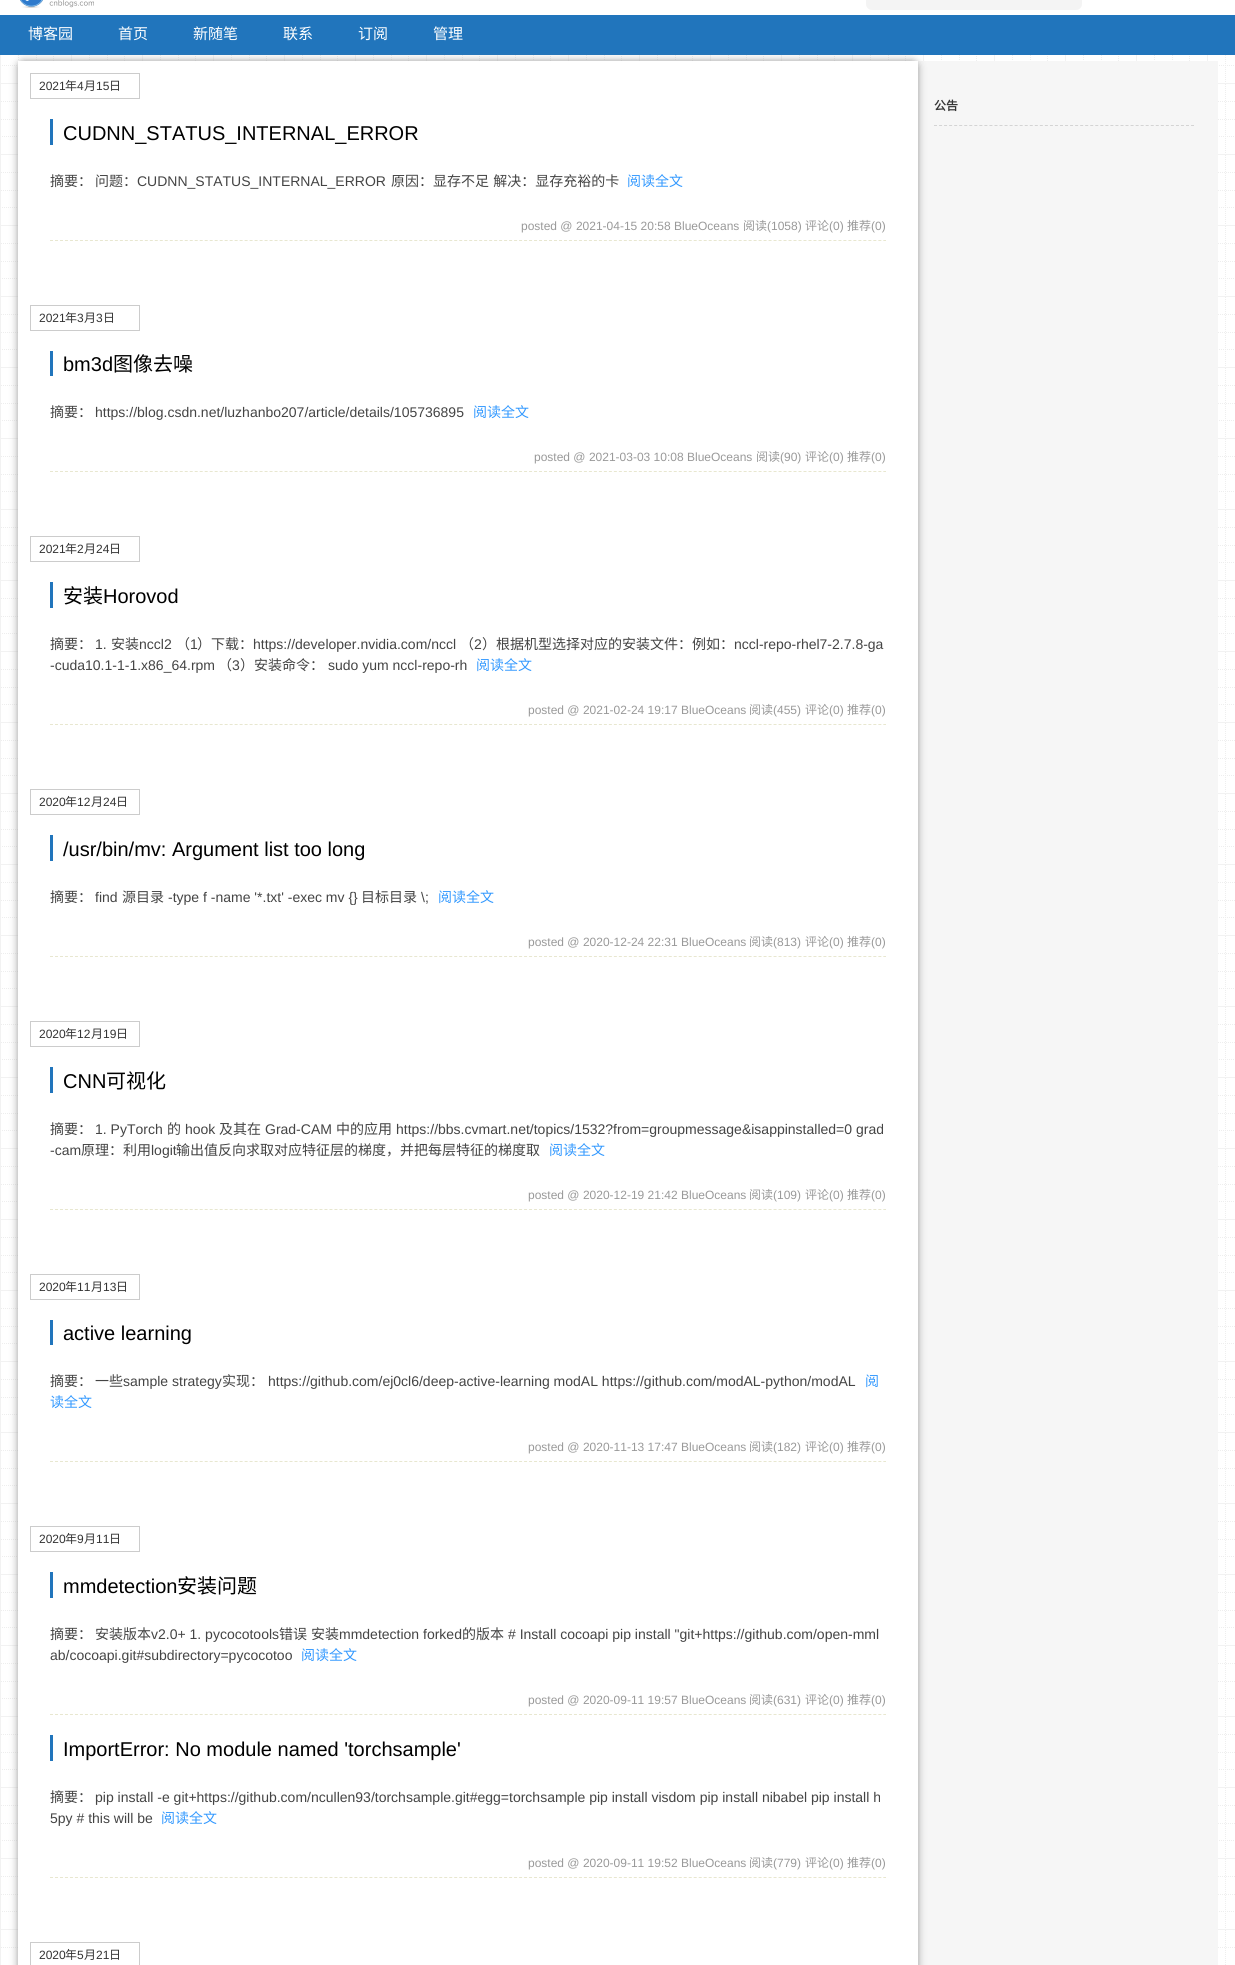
import math
import cairo

surface = cairo.ImageSurface(cairo.FORMAT_RGB24, 1235, 1965)
ctx = cairo.Context(surface)
options = cairo.FontOptions()
options.set_hint_metrics(cairo.HINT_METRICS_OFF)
options.set_hint_style(cairo.HINT_STYLE_NONE)
ctx.set_font_options(options)
ctx.set_miter_limit(4)


def spaced_text(x, y, s, letter, word):
    ctx.move_to(x, y)
    for ch in s:
        ctx.show_text(ch)
        ctx.rel_move_to(letter + word * (ch == ' '), 0)


def round_rect(x, y, w, h, r):
    ctx.new_sub_path()
    for i, (u, v) in enumerate([(x + w - r, y + h - r), (x + r, y + h - r), (x + r, y + r), (x + w - r, y + r)]):
        ctx.arc(u, v, r, i * math.pi / 2, (i + 1) * math.pi / 2)
    ctx.close_path()


def shadow(x, y, w, h, r, blur, alpha):
    ctx.push_group_with_content(cairo.CONTENT_ALPHA)
    ctx.set_operator(cairo.OPERATOR_SOURCE)
    for i in range(15, -16, -2):
        e = blur * i / 6
        if min(w, h) + 2 * e > 0:
            ctx.set_source_rgba(0, 0, 0, alpha * math.erfc((i - 1) / 8.5) / 2)
            round_rect(x - e, y - e, w + 2 * e, h + 2 * e, max(0, min(r + e + blur * .6, min(w, h) / 2 + e)))
            ctx.fill()
    ctx.mask(ctx.pop_group())


def picture(path, x, y, w, h):
    ctx.save()
    ctx.set_source_surface(cairo.ImageSurface.create_from_png(path), x, y)
    ctx.rectangle(x, y, w, h)
    ctx.fill()
    ctx.restore()


ctx.set_source_rgb(1, 1, 1)
ctx.paint()
picture("img1.png", 0, 55, 1235, 1910)
picture("img2.png", 20, 0, 74, 8)
ctx.set_source_rgb(0.957, 0.957, 0.957)
round_rect(866, -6, 216, 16, 6)
ctx.fill()
ctx.set_source_rgb(0.129, 0.459, 0.737)
ctx.rectangle(0, 15, 1235, 40)
ctx.fill()
ctx.select_font_face("Noto Sans CJK SC")
ctx.set_font_size(15)
ctx.set_source_rgb(1, 1, 1)
ctx.move_to(28, 39)
ctx.show_text("博客园")
ctx.move_to(118, 39)
ctx.show_text("首页")
ctx.move_to(193, 39)
ctx.show_text("新随笔")
ctx.move_to(283, 39)
ctx.show_text("联系")
ctx.move_to(358, 39)
ctx.show_text("订阅")
ctx.move_to(433, 39)
ctx.show_text("管理")
ctx.set_source_rgb(0.961, 0.961, 0.961)
ctx.rectangle(918, 61, 300, 1904)
ctx.fill()
ctx.set_source_rgb(0.6, 0.6, 0.6)
shadow(18, 61, 900, 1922, 6, 4, 1)
ctx.set_source_rgb(1, 1, 1)
ctx.rectangle(18, 61, 900, 1904)
ctx.fill()
ctx.rectangle(30.5, 73.5, 109, 25)
ctx.set_source_rgb(0.8, 0.8, 0.8)
ctx.set_line_width(1)
ctx.stroke()
ctx.select_font_face("Liberation Sans")
ctx.set_font_size(12)
ctx.set_source_rgb(0.2, 0.2, 0.2)
ctx.move_to(39, 90)
ctx.show_text("2021")
ctx.select_font_face("Noto Sans CJK SC")
ctx.move_to(65, 90)
ctx.show_text("年")
ctx.select_font_face("Liberation Sans")
ctx.move_to(77, 90)
ctx.show_text("4")
ctx.select_font_face("Noto Sans CJK SC")
ctx.move_to(84, 90)
ctx.show_text("月")
ctx.select_font_face("Liberation Sans")
ctx.move_to(96, 90)
ctx.show_text("15")
ctx.select_font_face("Noto Sans CJK SC")
ctx.move_to(109, 90)
ctx.show_text("日")
ctx.set_source_rgb(0.129, 0.459, 0.737)
ctx.rectangle(50, 119, 3, 26)
ctx.fill()
ctx.select_font_face("Liberation Sans")
ctx.set_font_size(20)
ctx.set_source_rgb(0, 0, 0)
ctx.move_to(63, 140)
ctx.show_text("CUDNN_STATUS_INTERNAL_ERROR")
ctx.select_font_face("Noto Sans CJK SC")
ctx.set_font_size(14)
ctx.set_source_rgb(0.267, 0.267, 0.267)
ctx.move_to(50, 186)
ctx.show_text("摘要：")
ctx.move_to(95, 186)
ctx.show_text("问题：")
ctx.select_font_face("Liberation Sans")
ctx.move_to(137, 186)
ctx.show_text("CUDNN_STATUS_INTERNAL_ERROR")
ctx.select_font_face("Noto Sans CJK SC")
spaced_text(391, 186, "原因：显存不足 解决：显存充裕的卡", 0, 1)
ctx.set_source_rgb(0.2, 0.6, 1)
ctx.move_to(627, 186)
ctx.show_text("阅读全文")
ctx.new_path()
ctx.move_to(50, 240.5)
ctx.line_to(886, 240.5)
ctx.set_source_rgb(0.91, 0.906, 0.816)
ctx.set_dash([3, 1.99])
ctx.stroke()
ctx.select_font_face("Liberation Sans")
ctx.set_font_size(12)
ctx.set_source_rgb(0.6, 0.6, 0.6)
ctx.move_to(521, 230)
ctx.show_text("posted @ 2021-04-15 20:58 BlueOceans")
ctx.select_font_face("Noto Sans CJK SC")
ctx.move_to(743, 230)
ctx.show_text("阅读")
ctx.select_font_face("Liberation Sans")
ctx.move_to(767, 230)
ctx.show_text("(1058)")
ctx.select_font_face("Noto Sans CJK SC")
ctx.move_to(805, 230)
ctx.show_text("评论")
ctx.select_font_face("Liberation Sans")
ctx.move_to(829, 230)
ctx.show_text("(0)")
ctx.select_font_face("Noto Sans CJK SC")
ctx.move_to(847, 230)
ctx.show_text("推荐")
ctx.select_font_face("Liberation Sans")
ctx.move_to(871, 230)
ctx.show_text("(0)")
ctx.rectangle(30.5, 305.5, 109, 25)
ctx.set_source_rgb(0.8, 0.8, 0.8)
ctx.set_dash([])
ctx.stroke()
ctx.set_source_rgb(0.2, 0.2, 0.2)
ctx.move_to(39, 322)
ctx.show_text("2021")
ctx.select_font_face("Noto Sans CJK SC")
ctx.move_to(65, 322)
ctx.show_text("年")
ctx.select_font_face("Liberation Sans")
ctx.move_to(77, 322)
ctx.show_text("3")
ctx.select_font_face("Noto Sans CJK SC")
ctx.move_to(84, 322)
ctx.show_text("月")
ctx.select_font_face("Liberation Sans")
ctx.move_to(96, 322)
ctx.show_text("3")
ctx.select_font_face("Noto Sans CJK SC")
ctx.move_to(103, 322)
ctx.show_text("日")
ctx.set_source_rgb(0.129, 0.459, 0.737)
ctx.rectangle(50, 351, 3, 25)
ctx.fill()
ctx.select_font_face("Liberation Sans")
ctx.set_font_size(20)
ctx.set_source_rgb(0, 0, 0)
ctx.move_to(63, 371)
ctx.show_text("bm3d")
ctx.select_font_face("Noto Sans CJK SC")
ctx.move_to(113, 371)
ctx.show_text("图像去噪")
ctx.set_font_size(14)
ctx.set_source_rgb(0.267, 0.267, 0.267)
ctx.move_to(50, 417)
ctx.show_text("摘要：")
ctx.select_font_face("Liberation Sans")
ctx.move_to(95, 417)
ctx.show_text("https://blog.csdn.net/luzhanbo207/article/details/105736895")
ctx.select_font_face("Noto Sans CJK SC")
ctx.set_source_rgb(0.2, 0.6, 1)
ctx.move_to(473, 417)
ctx.show_text("阅读全文")
ctx.new_path()
ctx.move_to(50, 471.5)
ctx.line_to(886, 471.5)
ctx.set_source_rgb(0.91, 0.906, 0.816)
ctx.set_dash([3, 1.99])
ctx.stroke()
ctx.select_font_face("Liberation Sans")
ctx.set_font_size(12)
ctx.set_source_rgb(0.6, 0.6, 0.6)
ctx.move_to(534, 461)
ctx.show_text("posted @ 2021-03-03 10:08 BlueOceans")
ctx.select_font_face("Noto Sans CJK SC")
ctx.move_to(756, 461)
ctx.show_text("阅读")
ctx.select_font_face("Liberation Sans")
ctx.move_to(780, 461)
ctx.show_text("(90)")
ctx.select_font_face("Noto Sans CJK SC")
ctx.move_to(805, 461)
ctx.show_text("评论")
ctx.select_font_face("Liberation Sans")
ctx.move_to(829, 461)
ctx.show_text("(0)")
ctx.select_font_face("Noto Sans CJK SC")
ctx.move_to(847, 461)
ctx.show_text("推荐")
ctx.select_font_face("Liberation Sans")
ctx.move_to(871, 461)
ctx.show_text("(0)")
ctx.rectangle(30.5, 536.5, 109, 25)
ctx.set_source_rgb(0.8, 0.8, 0.8)
ctx.set_dash([])
ctx.stroke()
ctx.set_source_rgb(0.2, 0.2, 0.2)
ctx.move_to(39, 553)
ctx.show_text("2021")
ctx.select_font_face("Noto Sans CJK SC")
ctx.move_to(65, 553)
ctx.show_text("年")
ctx.select_font_face("Liberation Sans")
ctx.move_to(77, 553)
ctx.show_text("2")
ctx.select_font_face("Noto Sans CJK SC")
ctx.move_to(84, 553)
ctx.show_text("月")
ctx.select_font_face("Liberation Sans")
ctx.move_to(96, 553)
ctx.show_text("24")
ctx.select_font_face("Noto Sans CJK SC")
ctx.move_to(109, 553)
ctx.show_text("日")
ctx.set_source_rgb(0.129, 0.459, 0.737)
ctx.rectangle(50, 582, 3, 26)
ctx.fill()
ctx.set_font_size(20)
ctx.set_source_rgb(0, 0, 0)
ctx.move_to(63, 603)
ctx.show_text("安装")
ctx.select_font_face("Liberation Sans")
ctx.move_to(103, 603)
ctx.show_text("Horovod")
ctx.select_font_face("Noto Sans CJK SC")
ctx.set_font_size(14)
ctx.set_source_rgb(0.267, 0.267, 0.267)
ctx.move_to(50, 649)
ctx.show_text("摘要：")
ctx.select_font_face("Liberation Sans")
ctx.move_to(95, 649)
ctx.show_text("1.")
ctx.select_font_face("Noto Sans CJK SC")
ctx.move_to(111, 649)
ctx.show_text("安装")
ctx.select_font_face("Liberation Sans")
ctx.move_to(139, 649)
ctx.show_text("nccl2")
ctx.select_font_face("Noto Sans CJK SC")
ctx.move_to(176, 649)
ctx.show_text("（")
ctx.select_font_face("Liberation Sans")
ctx.move_to(190, 649)
ctx.show_text("1")
ctx.select_font_face("Noto Sans CJK SC")
ctx.move_to(197, 649)
ctx.show_text("）下载：")
ctx.select_font_face("Liberation Sans")
ctx.move_to(253, 649)
ctx.show_text("https://developer.nvidia.com/nccl")
ctx.select_font_face("Noto Sans CJK SC")
ctx.move_to(460, 649)
ctx.show_text("（")
ctx.select_font_face("Liberation Sans")
ctx.move_to(474, 649)
ctx.show_text("2")
ctx.select_font_face("Noto Sans CJK SC")
ctx.move_to(482, 649)
ctx.show_text("）根据机型选择对应的安装文件：例如：")
ctx.select_font_face("Liberation Sans")
ctx.move_to(734, 649)
ctx.show_text("nccl-repo-rhel7-2.7.8-ga")
ctx.move_to(50, 670)
ctx.show_text("-cuda10.1-1-1.x86_64.rpm")
ctx.select_font_face("Noto Sans CJK SC")
ctx.move_to(218, 670)
ctx.show_text("（")
ctx.select_font_face("Liberation Sans")
ctx.move_to(232, 670)
ctx.show_text("3")
ctx.select_font_face("Noto Sans CJK SC")
ctx.move_to(240, 670)
ctx.show_text("）安装命令：")
ctx.select_font_face("Liberation Sans")
ctx.move_to(328, 670)
ctx.show_text("sudo yum nccl-repo-rh")
ctx.select_font_face("Noto Sans CJK SC")
ctx.set_source_rgb(0.2, 0.6, 1)
ctx.move_to(476, 670)
ctx.show_text("阅读全文")
ctx.new_path()
ctx.move_to(50, 724.5)
ctx.line_to(886, 724.5)
ctx.set_source_rgb(0.91, 0.906, 0.816)
ctx.set_dash([3, 1.99])
ctx.stroke()
ctx.select_font_face("Liberation Sans")
ctx.set_font_size(12)
ctx.set_source_rgb(0.6, 0.6, 0.6)
ctx.move_to(528, 714)
ctx.show_text("posted @ 2021-02-24 19:17 BlueOceans")
ctx.select_font_face("Noto Sans CJK SC")
ctx.move_to(749, 714)
ctx.show_text("阅读")
ctx.select_font_face("Liberation Sans")
ctx.move_to(773, 714)
ctx.show_text("(455)")
ctx.select_font_face("Noto Sans CJK SC")
ctx.move_to(805, 714)
ctx.show_text("评论")
ctx.select_font_face("Liberation Sans")
ctx.move_to(829, 714)
ctx.show_text("(0)")
ctx.select_font_face("Noto Sans CJK SC")
ctx.move_to(847, 714)
ctx.show_text("推荐")
ctx.select_font_face("Liberation Sans")
ctx.move_to(871, 714)
ctx.show_text("(0)")
ctx.rectangle(30.5, 789.5, 109, 25)
ctx.set_source_rgb(0.8, 0.8, 0.8)
ctx.set_dash([])
ctx.stroke()
ctx.set_source_rgb(0.2, 0.2, 0.2)
ctx.move_to(39, 806)
ctx.show_text("2020")
ctx.select_font_face("Noto Sans CJK SC")
ctx.move_to(65, 806)
ctx.show_text("年")
ctx.select_font_face("Liberation Sans")
ctx.move_to(77, 806)
ctx.show_text("12")
ctx.select_font_face("Noto Sans CJK SC")
ctx.move_to(91, 806)
ctx.show_text("月")
ctx.select_font_face("Liberation Sans")
ctx.move_to(103, 806)
ctx.show_text("24")
ctx.select_font_face("Noto Sans CJK SC")
ctx.move_to(116, 806)
ctx.show_text("日")
ctx.set_source_rgb(0.129, 0.459, 0.737)
ctx.rectangle(50, 835, 3, 26)
ctx.fill()
ctx.select_font_face("Liberation Sans")
ctx.set_font_size(20)
ctx.set_source_rgb(0, 0, 0)
ctx.move_to(63, 856)
ctx.show_text("/usr/bin/mv: Argument list too long")
ctx.select_font_face("Noto Sans CJK SC")
ctx.set_font_size(14)
ctx.set_source_rgb(0.267, 0.267, 0.267)
ctx.move_to(50, 902)
ctx.show_text("摘要：")
ctx.select_font_face("Liberation Sans")
ctx.move_to(95, 902)
ctx.show_text("find")
ctx.select_font_face("Noto Sans CJK SC")
ctx.move_to(122, 902)
ctx.show_text("源目录")
ctx.select_font_face("Liberation Sans")
ctx.move_to(168, 902)
ctx.show_text("-type f -name '*.txt' -exec mv {}")
ctx.select_font_face("Noto Sans CJK SC")
ctx.move_to(361, 902)
ctx.show_text("目标目录")
ctx.select_font_face("Liberation Sans")
ctx.move_to(421, 902)
ctx.show_text("\\;")
ctx.select_font_face("Noto Sans CJK SC")
ctx.set_source_rgb(0.2, 0.6, 1)
ctx.move_to(438, 902)
ctx.show_text("阅读全文")
ctx.new_path()
ctx.move_to(50, 956.5)
ctx.line_to(886, 956.5)
ctx.set_source_rgb(0.91, 0.906, 0.816)
ctx.set_dash([3, 1.99])
ctx.stroke()
ctx.select_font_face("Liberation Sans")
ctx.set_font_size(12)
ctx.set_source_rgb(0.6, 0.6, 0.6)
ctx.move_to(528, 946)
ctx.show_text("posted @ 2020-12-24 22:31 BlueOceans")
ctx.select_font_face("Noto Sans CJK SC")
ctx.move_to(749, 946)
ctx.show_text("阅读")
ctx.select_font_face("Liberation Sans")
ctx.move_to(773, 946)
ctx.show_text("(813)")
ctx.select_font_face("Noto Sans CJK SC")
ctx.move_to(805, 946)
ctx.show_text("评论")
ctx.select_font_face("Liberation Sans")
ctx.move_to(829, 946)
ctx.show_text("(0)")
ctx.select_font_face("Noto Sans CJK SC")
ctx.move_to(847, 946)
ctx.show_text("推荐")
ctx.select_font_face("Liberation Sans")
ctx.move_to(871, 946)
ctx.show_text("(0)")
ctx.rectangle(30.5, 1021.5, 109, 25)
ctx.set_source_rgb(0.8, 0.8, 0.8)
ctx.set_dash([])
ctx.stroke()
ctx.set_source_rgb(0.2, 0.2, 0.2)
ctx.move_to(39, 1038)
ctx.show_text("2020")
ctx.select_font_face("Noto Sans CJK SC")
ctx.move_to(65, 1038)
ctx.show_text("年")
ctx.select_font_face("Liberation Sans")
ctx.move_to(77, 1038)
ctx.show_text("12")
ctx.select_font_face("Noto Sans CJK SC")
ctx.move_to(91, 1038)
ctx.show_text("月")
ctx.select_font_face("Liberation Sans")
ctx.move_to(103, 1038)
ctx.show_text("19")
ctx.select_font_face("Noto Sans CJK SC")
ctx.move_to(116, 1038)
ctx.show_text("日")
ctx.set_source_rgb(0.129, 0.459, 0.737)
ctx.rectangle(50, 1067, 3, 26)
ctx.fill()
ctx.select_font_face("Liberation Sans")
ctx.set_font_size(20)
ctx.set_source_rgb(0, 0, 0)
ctx.move_to(63, 1088)
ctx.show_text("CNN")
ctx.select_font_face("Noto Sans CJK SC")
ctx.move_to(106, 1088)
ctx.show_text("可视化")
ctx.set_font_size(14)
ctx.set_source_rgb(0.267, 0.267, 0.267)
ctx.move_to(50, 1134)
ctx.show_text("摘要：")
ctx.select_font_face("Liberation Sans")
ctx.move_to(95, 1134)
ctx.show_text("1. PyTorch")
ctx.select_font_face("Noto Sans CJK SC")
ctx.move_to(167, 1134)
ctx.show_text("的")
ctx.select_font_face("Liberation Sans")
ctx.move_to(185, 1134)
ctx.show_text("hook")
ctx.select_font_face("Noto Sans CJK SC")
ctx.move_to(219, 1134)
ctx.show_text("及其在")
ctx.select_font_face("Liberation Sans")
ctx.move_to(265, 1134)
ctx.show_text("Grad-CAM")
ctx.select_font_face("Noto Sans CJK SC")
ctx.move_to(336, 1134)
ctx.show_text("中的应用")
ctx.select_font_face("Liberation Sans")
ctx.move_to(396, 1134)
ctx.show_text("https://bbs.cvmart.net/topics/1532?from=groupmessage&isappinstalled=0 grad")
ctx.move_to(50, 1155)
ctx.show_text("-cam")
ctx.select_font_face("Noto Sans CJK SC")
ctx.move_to(81, 1155)
ctx.show_text("原理：利用")
ctx.select_font_face("Liberation Sans")
ctx.move_to(151, 1155)
ctx.show_text("logit")
ctx.select_font_face("Noto Sans CJK SC")
ctx.move_to(176, 1155)
ctx.show_text("输出值反向求取对应特征层的梯度，并把每层特征的梯度取")
ctx.set_source_rgb(0.2, 0.6, 1)
ctx.move_to(549, 1155)
ctx.show_text("阅读全文")
ctx.new_path()
ctx.move_to(50, 1209.5)
ctx.line_to(886, 1209.5)
ctx.set_source_rgb(0.91, 0.906, 0.816)
ctx.set_dash([3, 1.99])
ctx.stroke()
ctx.select_font_face("Liberation Sans")
ctx.set_font_size(12)
ctx.set_source_rgb(0.6, 0.6, 0.6)
ctx.move_to(528, 1199)
ctx.show_text("posted @ 2020-12-19 21:42 BlueOceans")
ctx.select_font_face("Noto Sans CJK SC")
ctx.move_to(749, 1199)
ctx.show_text("阅读")
ctx.select_font_face("Liberation Sans")
ctx.move_to(773, 1199)
ctx.show_text("(109)")
ctx.select_font_face("Noto Sans CJK SC")
ctx.move_to(805, 1199)
ctx.show_text("评论")
ctx.select_font_face("Liberation Sans")
ctx.move_to(829, 1199)
ctx.show_text("(0)")
ctx.select_font_face("Noto Sans CJK SC")
ctx.move_to(847, 1199)
ctx.show_text("推荐")
ctx.select_font_face("Liberation Sans")
ctx.move_to(871, 1199)
ctx.show_text("(0)")
ctx.rectangle(30.5, 1274.5, 109, 25)
ctx.set_source_rgb(0.8, 0.8, 0.8)
ctx.set_dash([])
ctx.stroke()
ctx.set_source_rgb(0.2, 0.2, 0.2)
ctx.move_to(39, 1291)
ctx.show_text("2020")
ctx.select_font_face("Noto Sans CJK SC")
ctx.move_to(65, 1291)
ctx.show_text("年")
ctx.select_font_face("Liberation Sans")
ctx.move_to(77, 1291)
ctx.show_text("11")
ctx.select_font_face("Noto Sans CJK SC")
ctx.move_to(91, 1291)
ctx.show_text("月")
ctx.select_font_face("Liberation Sans")
ctx.move_to(103, 1291)
ctx.show_text("13")
ctx.select_font_face("Noto Sans CJK SC")
ctx.move_to(116, 1291)
ctx.show_text("日")
ctx.set_source_rgb(0.129, 0.459, 0.737)
ctx.rectangle(50, 1320, 3, 25)
ctx.fill()
ctx.select_font_face("Liberation Sans")
ctx.set_font_size(20)
ctx.set_source_rgb(0, 0, 0)
ctx.move_to(63, 1340)
ctx.show_text("active learning")
ctx.select_font_face("Noto Sans CJK SC")
ctx.set_font_size(14)
ctx.set_source_rgb(0.267, 0.267, 0.267)
ctx.move_to(50, 1386)
ctx.show_text("摘要：")
ctx.move_to(95, 1386)
ctx.show_text("一些")
ctx.select_font_face("Liberation Sans")
ctx.move_to(123, 1386)
ctx.show_text("sample strategy")
ctx.select_font_face("Noto Sans CJK SC")
ctx.move_to(222, 1386)
ctx.show_text("实现：")
ctx.select_font_face("Liberation Sans")
ctx.move_to(268, 1386)
ctx.show_text("https://github.com/ej0cl6/deep-active-learning modAL https://github.com/modAL-python/modAL")
ctx.select_font_face("Noto Sans CJK SC")
ctx.set_source_rgb(0.2, 0.6, 1)
ctx.move_to(865, 1386)
ctx.show_text("阅")
ctx.move_to(50, 1407)
ctx.show_text("读全文")
ctx.new_path()
ctx.move_to(50, 1461.5)
ctx.line_to(886, 1461.5)
ctx.set_source_rgb(0.91, 0.906, 0.816)
ctx.set_dash([3, 1.99])
ctx.stroke()
ctx.select_font_face("Liberation Sans")
ctx.set_font_size(12)
ctx.set_source_rgb(0.6, 0.6, 0.6)
ctx.move_to(528, 1451)
ctx.show_text("posted @ 2020-11-13 17:47 BlueOceans")
ctx.select_font_face("Noto Sans CJK SC")
ctx.move_to(749, 1451)
ctx.show_text("阅读")
ctx.select_font_face("Liberation Sans")
ctx.move_to(773, 1451)
ctx.show_text("(182)")
ctx.select_font_face("Noto Sans CJK SC")
ctx.move_to(805, 1451)
ctx.show_text("评论")
ctx.select_font_face("Liberation Sans")
ctx.move_to(829, 1451)
ctx.show_text("(0)")
ctx.select_font_face("Noto Sans CJK SC")
ctx.move_to(847, 1451)
ctx.show_text("推荐")
ctx.select_font_face("Liberation Sans")
ctx.move_to(871, 1451)
ctx.show_text("(0)")
ctx.rectangle(30.5, 1526.5, 109, 25)
ctx.set_source_rgb(0.8, 0.8, 0.8)
ctx.set_dash([])
ctx.stroke()
ctx.set_source_rgb(0.2, 0.2, 0.2)
ctx.move_to(39, 1543)
ctx.show_text("2020")
ctx.select_font_face("Noto Sans CJK SC")
ctx.move_to(65, 1543)
ctx.show_text("年")
ctx.select_font_face("Liberation Sans")
ctx.move_to(77, 1543)
ctx.show_text("9")
ctx.select_font_face("Noto Sans CJK SC")
ctx.move_to(84, 1543)
ctx.show_text("月")
ctx.select_font_face("Liberation Sans")
ctx.move_to(96, 1543)
ctx.show_text("11")
ctx.select_font_face("Noto Sans CJK SC")
ctx.move_to(109, 1543)
ctx.show_text("日")
ctx.set_source_rgb(0.129, 0.459, 0.737)
ctx.rectangle(50, 1572, 3, 26)
ctx.fill()
ctx.select_font_face("Liberation Sans")
ctx.set_font_size(20)
ctx.set_source_rgb(0, 0, 0)
ctx.move_to(63, 1593)
ctx.show_text("mmdetection")
ctx.select_font_face("Noto Sans CJK SC")
ctx.move_to(177, 1593)
ctx.show_text("安装问题")
ctx.set_font_size(14)
ctx.set_source_rgb(0.267, 0.267, 0.267)
ctx.move_to(50, 1639)
ctx.show_text("摘要：")
ctx.move_to(95, 1639)
ctx.show_text("安装版本")
ctx.select_font_face("Liberation Sans")
ctx.move_to(151, 1639)
ctx.show_text("v2.0+ 1. pycocotools")
ctx.select_font_face("Noto Sans CJK SC")
ctx.move_to(279, 1639)
ctx.show_text("错误")
ctx.move_to(311, 1639)
ctx.show_text("安装")
ctx.select_font_face("Liberation Sans")
ctx.move_to(339, 1639)
ctx.show_text("mmdetection forked")
ctx.select_font_face("Noto Sans CJK SC")
ctx.move_to(462, 1639)
ctx.show_text("的版本")
ctx.select_font_face("Liberation Sans")
ctx.move_to(508, 1639)
ctx.show_text("# Install cocoapi pip install \"git+https://github.com/open-mml")
ctx.move_to(50, 1660)
ctx.show_text("ab/cocoapi.git#subdirectory=pycocotoo")
ctx.select_font_face("Noto Sans CJK SC")
ctx.set_source_rgb(0.2, 0.6, 1)
ctx.move_to(301, 1660)
ctx.show_text("阅读全文")
ctx.new_path()
ctx.move_to(50, 1714.5)
ctx.line_to(886, 1714.5)
ctx.set_source_rgb(0.91, 0.906, 0.816)
ctx.set_dash([3, 1.99])
ctx.stroke()
ctx.select_font_face("Liberation Sans")
ctx.set_font_size(12)
ctx.set_source_rgb(0.6, 0.6, 0.6)
ctx.move_to(528, 1704)
ctx.show_text("posted @ 2020-09-11 19:57 BlueOceans")
ctx.select_font_face("Noto Sans CJK SC")
ctx.move_to(749, 1704)
ctx.show_text("阅读")
ctx.select_font_face("Liberation Sans")
ctx.move_to(773, 1704)
ctx.show_text("(631)")
ctx.select_font_face("Noto Sans CJK SC")
ctx.move_to(805, 1704)
ctx.show_text("评论")
ctx.select_font_face("Liberation Sans")
ctx.move_to(829, 1704)
ctx.show_text("(0)")
ctx.select_font_face("Noto Sans CJK SC")
ctx.move_to(847, 1704)
ctx.show_text("推荐")
ctx.select_font_face("Liberation Sans")
ctx.move_to(871, 1704)
ctx.show_text("(0)")
ctx.set_source_rgb(0.129, 0.459, 0.737)
ctx.rectangle(50, 1735, 3, 26)
ctx.fill()
ctx.set_font_size(20)
ctx.set_source_rgb(0, 0, 0)
ctx.move_to(63, 1756)
ctx.show_text("ImportError: No module named 'torchsample'")
ctx.select_font_face("Noto Sans CJK SC")
ctx.set_font_size(14)
ctx.set_source_rgb(0.267, 0.267, 0.267)
ctx.move_to(50, 1802)
ctx.show_text("摘要：")
ctx.select_font_face("Liberation Sans")
ctx.move_to(95, 1802)
ctx.show_text("pip install -e git+https://github.com/ncullen93/torchsample.git#egg=torchsample pip install visdom pip install nibabel pip install h")
ctx.move_to(50, 1823)
ctx.show_text("5py # this will be")
ctx.select_font_face("Noto Sans CJK SC")
ctx.set_source_rgb(0.2, 0.6, 1)
ctx.move_to(161, 1823)
ctx.show_text("阅读全文")
ctx.new_path()
ctx.move_to(50, 1877.5)
ctx.line_to(886, 1877.5)
ctx.set_source_rgb(0.91, 0.906, 0.816)
ctx.stroke()
ctx.select_font_face("Liberation Sans")
ctx.set_font_size(12)
ctx.set_source_rgb(0.6, 0.6, 0.6)
ctx.move_to(528, 1867)
ctx.show_text("posted @ 2020-09-11 19:52 BlueOceans")
ctx.select_font_face("Noto Sans CJK SC")
ctx.move_to(749, 1867)
ctx.show_text("阅读")
ctx.select_font_face("Liberation Sans")
ctx.move_to(773, 1867)
ctx.show_text("(779)")
ctx.select_font_face("Noto Sans CJK SC")
ctx.move_to(805, 1867)
ctx.show_text("评论")
ctx.select_font_face("Liberation Sans")
ctx.move_to(829, 1867)
ctx.show_text("(0)")
ctx.select_font_face("Noto Sans CJK SC")
ctx.move_to(847, 1867)
ctx.show_text("推荐")
ctx.select_font_face("Liberation Sans")
ctx.move_to(871, 1867)
ctx.show_text("(0)")
ctx.rectangle(30.5, 1942.5, 109, 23)
ctx.set_source_rgb(0.8, 0.8, 0.8)
ctx.set_dash([])
ctx.stroke()
ctx.set_source_rgb(0.2, 0.2, 0.2)
ctx.move_to(39, 1959)
ctx.show_text("2020")
ctx.select_font_face("Noto Sans CJK SC")
ctx.move_to(65, 1959)
ctx.show_text("年")
ctx.select_font_face("Liberation Sans")
ctx.move_to(77, 1959)
ctx.show_text("5")
ctx.select_font_face("Noto Sans CJK SC")
ctx.move_to(84, 1959)
ctx.show_text("月")
ctx.select_font_face("Liberation Sans")
ctx.move_to(96, 1959)
ctx.show_text("21")
ctx.select_font_face("Noto Sans CJK SC")
ctx.move_to(109, 1959)
ctx.show_text("日")
ctx.new_path()
ctx.move_to(934, 125.5)
ctx.line_to(1194, 125.5)
ctx.set_source_rgb(0.831, 0.831, 0.831)
ctx.set_dash([3, 2.04])
ctx.stroke()
ctx.select_font_face("Noto Sans CJK SC", cairo.FONT_SLANT_NORMAL, cairo.FONT_WEIGHT_BOLD)
ctx.set_source_rgb(0.2, 0.2, 0.2)
ctx.move_to(934, 110)
ctx.show_text("公告")
surface.write_to_png("page.png")
